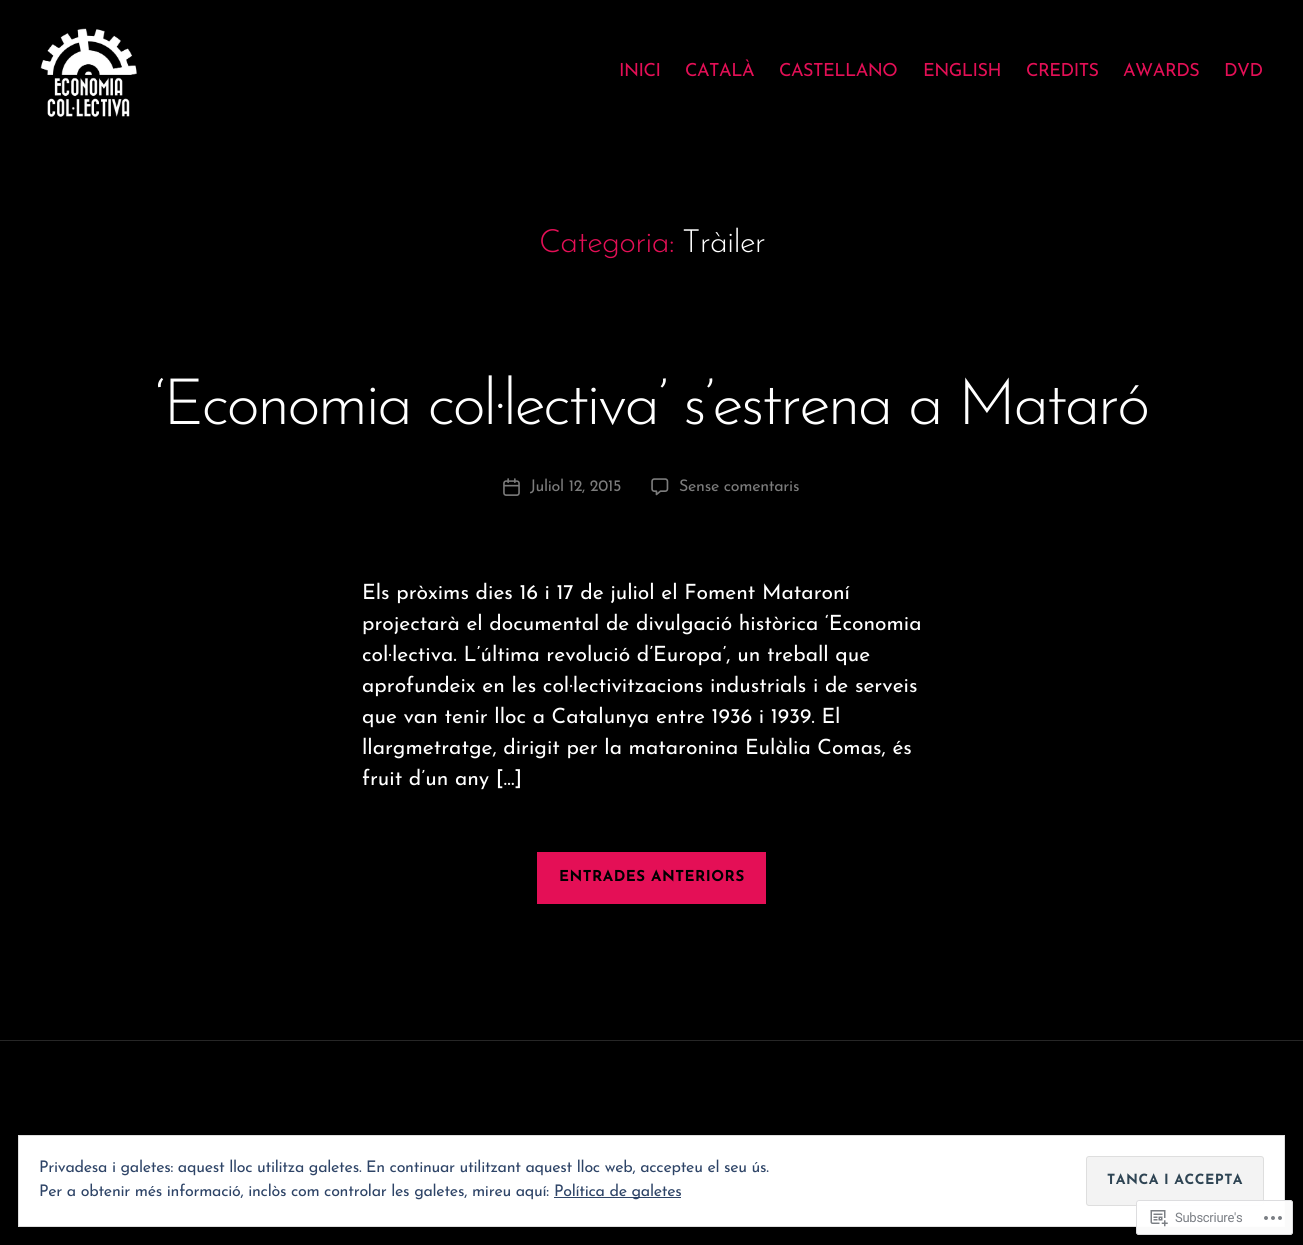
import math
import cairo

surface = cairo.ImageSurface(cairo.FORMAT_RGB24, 1303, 1245)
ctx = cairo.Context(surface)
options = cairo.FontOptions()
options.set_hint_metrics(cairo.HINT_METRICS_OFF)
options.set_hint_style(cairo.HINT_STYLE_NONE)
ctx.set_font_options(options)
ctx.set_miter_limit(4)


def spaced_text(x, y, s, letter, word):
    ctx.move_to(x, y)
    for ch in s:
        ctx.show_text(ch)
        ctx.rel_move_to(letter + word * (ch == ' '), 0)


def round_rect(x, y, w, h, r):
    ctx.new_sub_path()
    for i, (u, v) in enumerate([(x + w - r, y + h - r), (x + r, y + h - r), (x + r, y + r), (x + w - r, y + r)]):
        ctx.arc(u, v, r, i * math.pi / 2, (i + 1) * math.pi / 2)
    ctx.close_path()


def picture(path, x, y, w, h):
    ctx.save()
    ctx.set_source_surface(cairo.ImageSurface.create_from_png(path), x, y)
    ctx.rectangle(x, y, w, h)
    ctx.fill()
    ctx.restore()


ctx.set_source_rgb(0, 0, 0)
ctx.paint()
picture("img1.png", 40, 28, 97, 89)
ctx.select_font_face("Josefin Sans")
ctx.set_font_size(18)
ctx.set_source_rgb(0.894, 0.059, 0.337)
spaced_text(619, 76, "INICI", -0.5, 0)
spaced_text(685, 76, "CATALÀ", -0.5, 0)
spaced_text(779, 76, "CASTELLANO", -0.5, 0)
spaced_text(923, 76, "ENGLISH", -0.5, 0)
spaced_text(1026, 76, "CREDITS", -0.5, 0)
spaced_text(1123, 76, "AWARDS", -0.5, 0)
spaced_text(1224, 76, "DVD", -0.5, 0)
ctx.select_font_face("Josefin Sans Light")
ctx.set_font_size(32)
spaced_text(539, 252, "Categoria:", -0.75, 0)
ctx.set_source_rgb(1, 1, 1)
spaced_text(682, 252, "Tràiler", -0.75, 0)
ctx.set_font_size(64)
spaced_text(155, 424, "‘Economia col·lectiva’ s’estrena a Mataró", -2.65, 0)
picture("img2.png", 503, 478, 17, 18)
ctx.select_font_face("Josefin Sans")
ctx.set_font_size(16)
ctx.set_source_rgb(0.486, 0.486, 0.486)
spaced_text(530, 491, "Juliol 12, 2015", -0.27, 0)
picture("img3.png", 651, 478, 18, 18)
spaced_text(679, 491, "Sense comentaris", -0.27, 0)
ctx.set_font_size(21)
ctx.set_source_rgb(1, 1, 1)
ctx.move_to(362, 599)
ctx.show_text("Els pròxims dies 16 i 17 de juliol el Foment Mataroní")
ctx.move_to(362, 630)
ctx.show_text("projectarà el documental de divulgació històrica ‘Economia")
ctx.move_to(362, 661)
ctx.show_text("col·lectiva. L’última revolució d’Europa’, un treball que")
ctx.move_to(362, 692)
ctx.show_text("aprofundeix en les col·lectivitzacions industrials i de serveis")
ctx.move_to(362, 723)
ctx.show_text("que van tenir lloc a Catalunya entre 1936 i 1939. El")
ctx.move_to(362, 754)
ctx.show_text("llargmetratge, dirigit per la mataronina Eulàlia Comas, és")
ctx.move_to(362, 785)
ctx.show_text("fruit d’un any […]")
ctx.set_source_rgb(0.894, 0.059, 0.337)
ctx.rectangle(537, 852, 229, 52)
ctx.fill()
ctx.select_font_face("Josefin Sans", cairo.FONT_SLANT_NORMAL, cairo.FONT_WEIGHT_BOLD)
ctx.set_font_size(15)
ctx.set_source_rgb(0, 0, 0)
spaced_text(559, 881, "ENTRADES ANTERIORS", 0.5, 0)
ctx.set_source_rgb(0.149, 0.149, 0.149)
ctx.rectangle(0, 1040, 1303, 1)
ctx.fill()
ctx.set_source_rgb(1, 1, 1)
ctx.rectangle(18.5, 1135.5, 1266, 91)
ctx.fill_preserve()
ctx.set_source_rgb(0.871, 0.871, 0.871)
ctx.set_line_width(1)
ctx.stroke()
ctx.select_font_face("Josefin Sans")
ctx.set_font_size(16)
ctx.set_source_rgb(0.18, 0.267, 0.404)
spaced_text(39, 1172, "Privadesa i galetes: aquest lloc utilitza galetes. En continuar utilitzant aquest lloc web, accepteu el seu ús.", -0.27, 0)
ctx.set_source_rgb(0.953, 0.953, 0.953)
round_rect(1086.5, 1156.5, 177, 49, 2.5)
ctx.fill_preserve()
ctx.set_source_rgb(0.871, 0.871, 0.871)
ctx.stroke()
ctx.select_font_face("Josefin Sans", cairo.FONT_SLANT_NORMAL, cairo.FONT_WEIGHT_BOLD)
ctx.set_font_size(14)
ctx.set_source_rgb(0.18, 0.267, 0.325)
spaced_text(1107, 1184, "TANCA I ACCEPTA", 0.5, 0)
ctx.select_font_face("Josefin Sans")
ctx.set_font_size(16)
ctx.set_source_rgb(0.18, 0.267, 0.404)
spaced_text(39, 1196, "Per a obtenir més informació, inclòs com controlar les galetes, mireu aquí:", -0.27, 0)
ctx.rectangle(554, 1197, 127, 1)
ctx.fill()
spaced_text(554, 1196, "Política de galetes", -0.27, 0)
ctx.set_source_rgba(1, 1, 1, 0.98)
round_rect(1136, 1200, 157, 35, 3)
ctx.fill()
round_rect(1136.5, 1200.5, 156, 34, 2.5)
ctx.set_source_rgba(0.863, 0.863, 0.871, 0.98)
ctx.stroke()
picture("img4.png", 1150, 1210, 18, 17)
ctx.select_font_face("Roboto")
ctx.set_font_size(13)
ctx.set_source_rgb(0.482, 0.498, 0.522)
spaced_text(1175, 1222, "Subscriure's", -0.27, 0)
picture("img5.png", 1264, 1216, 18, 4)
surface.write_to_png("page.png")
